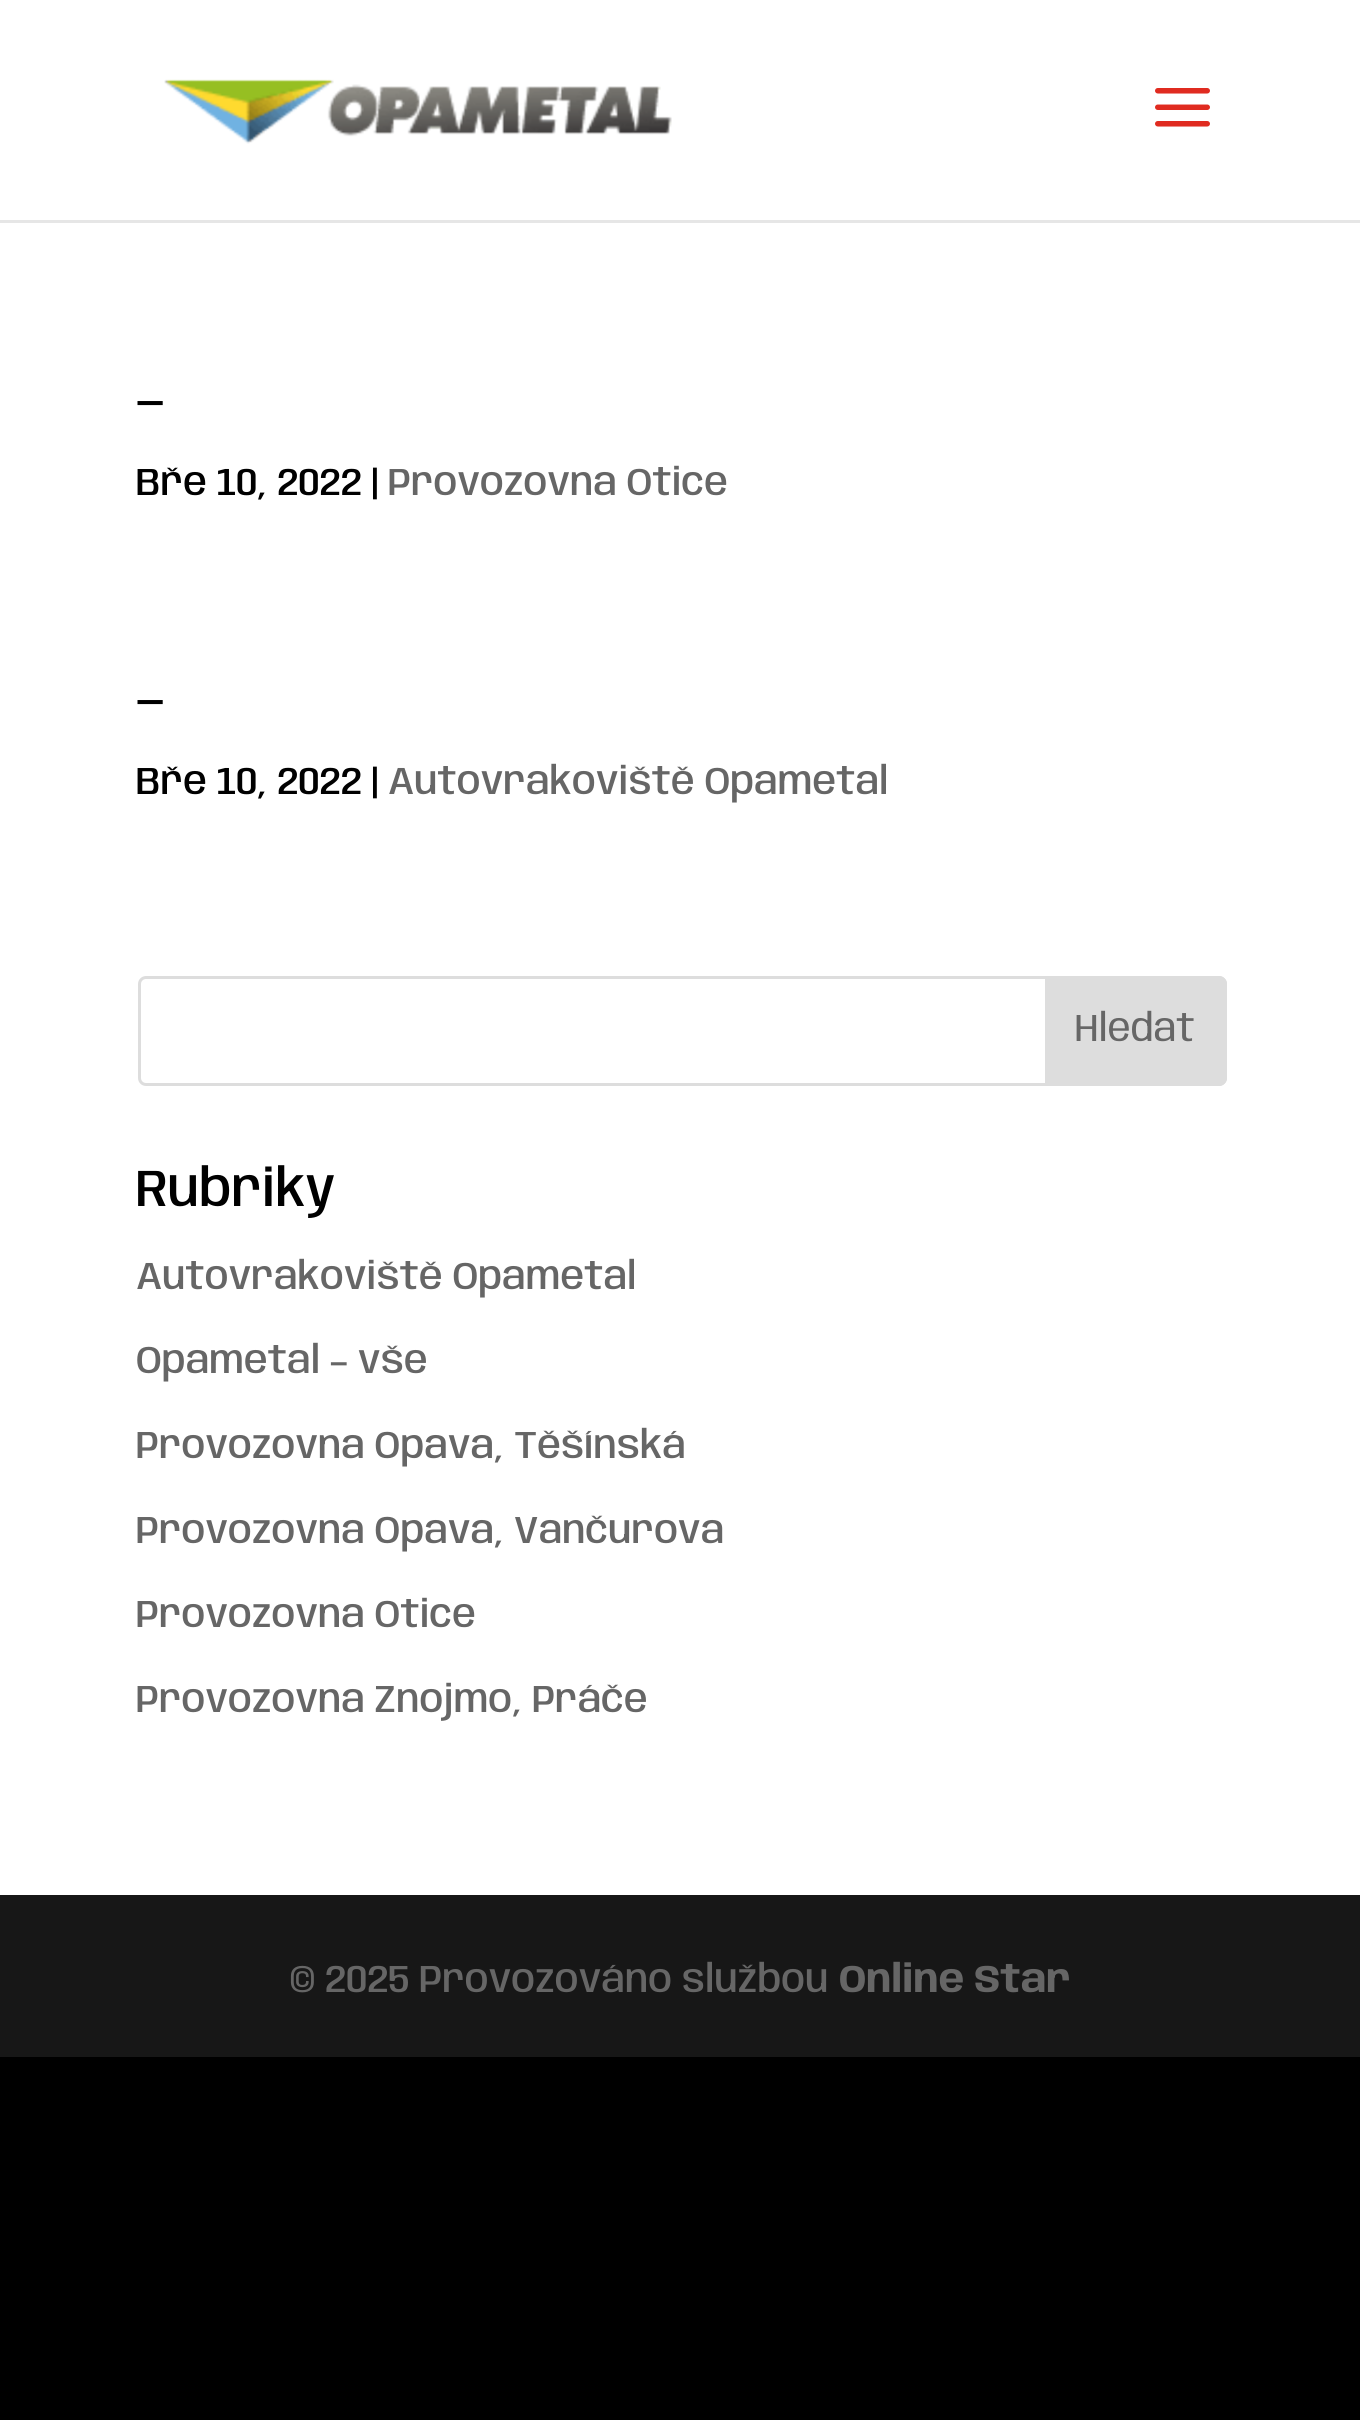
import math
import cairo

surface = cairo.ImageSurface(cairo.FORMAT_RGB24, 1360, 2420)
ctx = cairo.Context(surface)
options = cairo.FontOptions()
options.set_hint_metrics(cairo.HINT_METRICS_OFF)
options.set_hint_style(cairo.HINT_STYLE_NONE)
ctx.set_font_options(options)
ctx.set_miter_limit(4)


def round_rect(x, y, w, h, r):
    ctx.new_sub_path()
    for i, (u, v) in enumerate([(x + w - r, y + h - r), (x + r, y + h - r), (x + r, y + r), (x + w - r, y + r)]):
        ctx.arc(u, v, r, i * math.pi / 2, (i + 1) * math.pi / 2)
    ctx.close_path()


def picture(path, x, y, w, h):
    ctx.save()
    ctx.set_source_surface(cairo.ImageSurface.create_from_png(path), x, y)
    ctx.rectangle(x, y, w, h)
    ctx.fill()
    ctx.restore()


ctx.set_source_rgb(0, 0, 0)
ctx.paint()
ctx.set_source_rgb(0.902, 0.902, 0.902)
ctx.rectangle(0, 220, 1360, 3)
ctx.fill()
ctx.set_source_rgb(1, 1, 1)
ctx.rectangle(0, 0, 1360, 220)
ctx.fill()
picture("img1.png", 164, 79, 508, 65)
picture("img2.png", 1155, 88, 55, 39)
ctx.rectangle(0, 223, 1360, 1672)
ctx.fill()
ctx.select_font_face("Anybody Thin")
ctx.set_font_size(50)
ctx.set_source_rgb(0, 0, 0)
ctx.move_to(136, 415)
ctx.show_text("—")
ctx.set_font_size(38.5)
ctx.move_to(136, 495)
ctx.show_text("Bře 10, 2022 |")
ctx.set_source_rgb(0.4, 0.4, 0.4)
ctx.move_to(388, 495)
ctx.show_text("Provozovna Otice")
ctx.set_font_size(50)
ctx.set_source_rgb(0, 0, 0)
ctx.move_to(136, 714)
ctx.show_text("—")
ctx.set_font_size(38.5)
ctx.move_to(136, 794)
ctx.show_text("Bře 10, 2022 |")
ctx.set_source_rgb(0.4, 0.4, 0.4)
ctx.move_to(388, 794)
ctx.show_text("Autovrakoviště Opametal")
round_rect(139.5, 977.5, 1086, 107, 6.5)
ctx.set_source_rgb(0.867, 0.867, 0.867)
ctx.set_line_width(3)
ctx.stroke()
ctx.new_path()
ctx.move_to(1046.5, 977.5)
ctx.line_to(1219, 977.5)
ctx.curve_to(1222.5, 977.5, 1225.5, 980.5, 1225.5, 984)
ctx.line_to(1225.5, 1078)
ctx.curve_to(1225.5, 1081.5, 1222.5, 1084.5, 1219, 1084.5)
ctx.line_to(1046.5, 1084.5)
ctx.close_path()
ctx.fill_preserve()
ctx.stroke()
ctx.select_font_face("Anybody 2 Thin")
ctx.set_source_rgb(0.4, 0.4, 0.4)
ctx.move_to(1075, 1041)
ctx.show_text("Hledat")
ctx.select_font_face("Anybody Thin")
ctx.set_font_size(52)
ctx.set_source_rgb(0, 0, 0)
ctx.move_to(136, 1206)
ctx.show_text("Rubriky")
ctx.set_font_size(38.5)
ctx.set_source_rgb(0.4, 0.4, 0.4)
ctx.move_to(136, 1289)
ctx.show_text("Autovrakoviště Opametal")
ctx.move_to(136, 1373)
ctx.show_text("Opametal – vše")
ctx.move_to(136, 1458)
ctx.show_text("Provozovna Opava, Těšínská")
ctx.move_to(136, 1543)
ctx.show_text("Provozovna Opava, Vančurova")
ctx.move_to(136, 1627)
ctx.show_text("Provozovna Otice")
ctx.move_to(136, 1712)
ctx.show_text("Provozovna Znojmo, Práče")
ctx.set_source_rgb(0.09, 0.09, 0.09)
ctx.rectangle(0, 1895, 1360, 162)
ctx.fill()
ctx.set_source_rgb(0.4, 0.4, 0.4)
ctx.move_to(290, 1992)
ctx.show_text("© 2025 Provozováno službou")
ctx.select_font_face("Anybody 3 Thin")
ctx.move_to(839, 1992)
ctx.show_text("Online Star")
surface.write_to_png("page.png")
